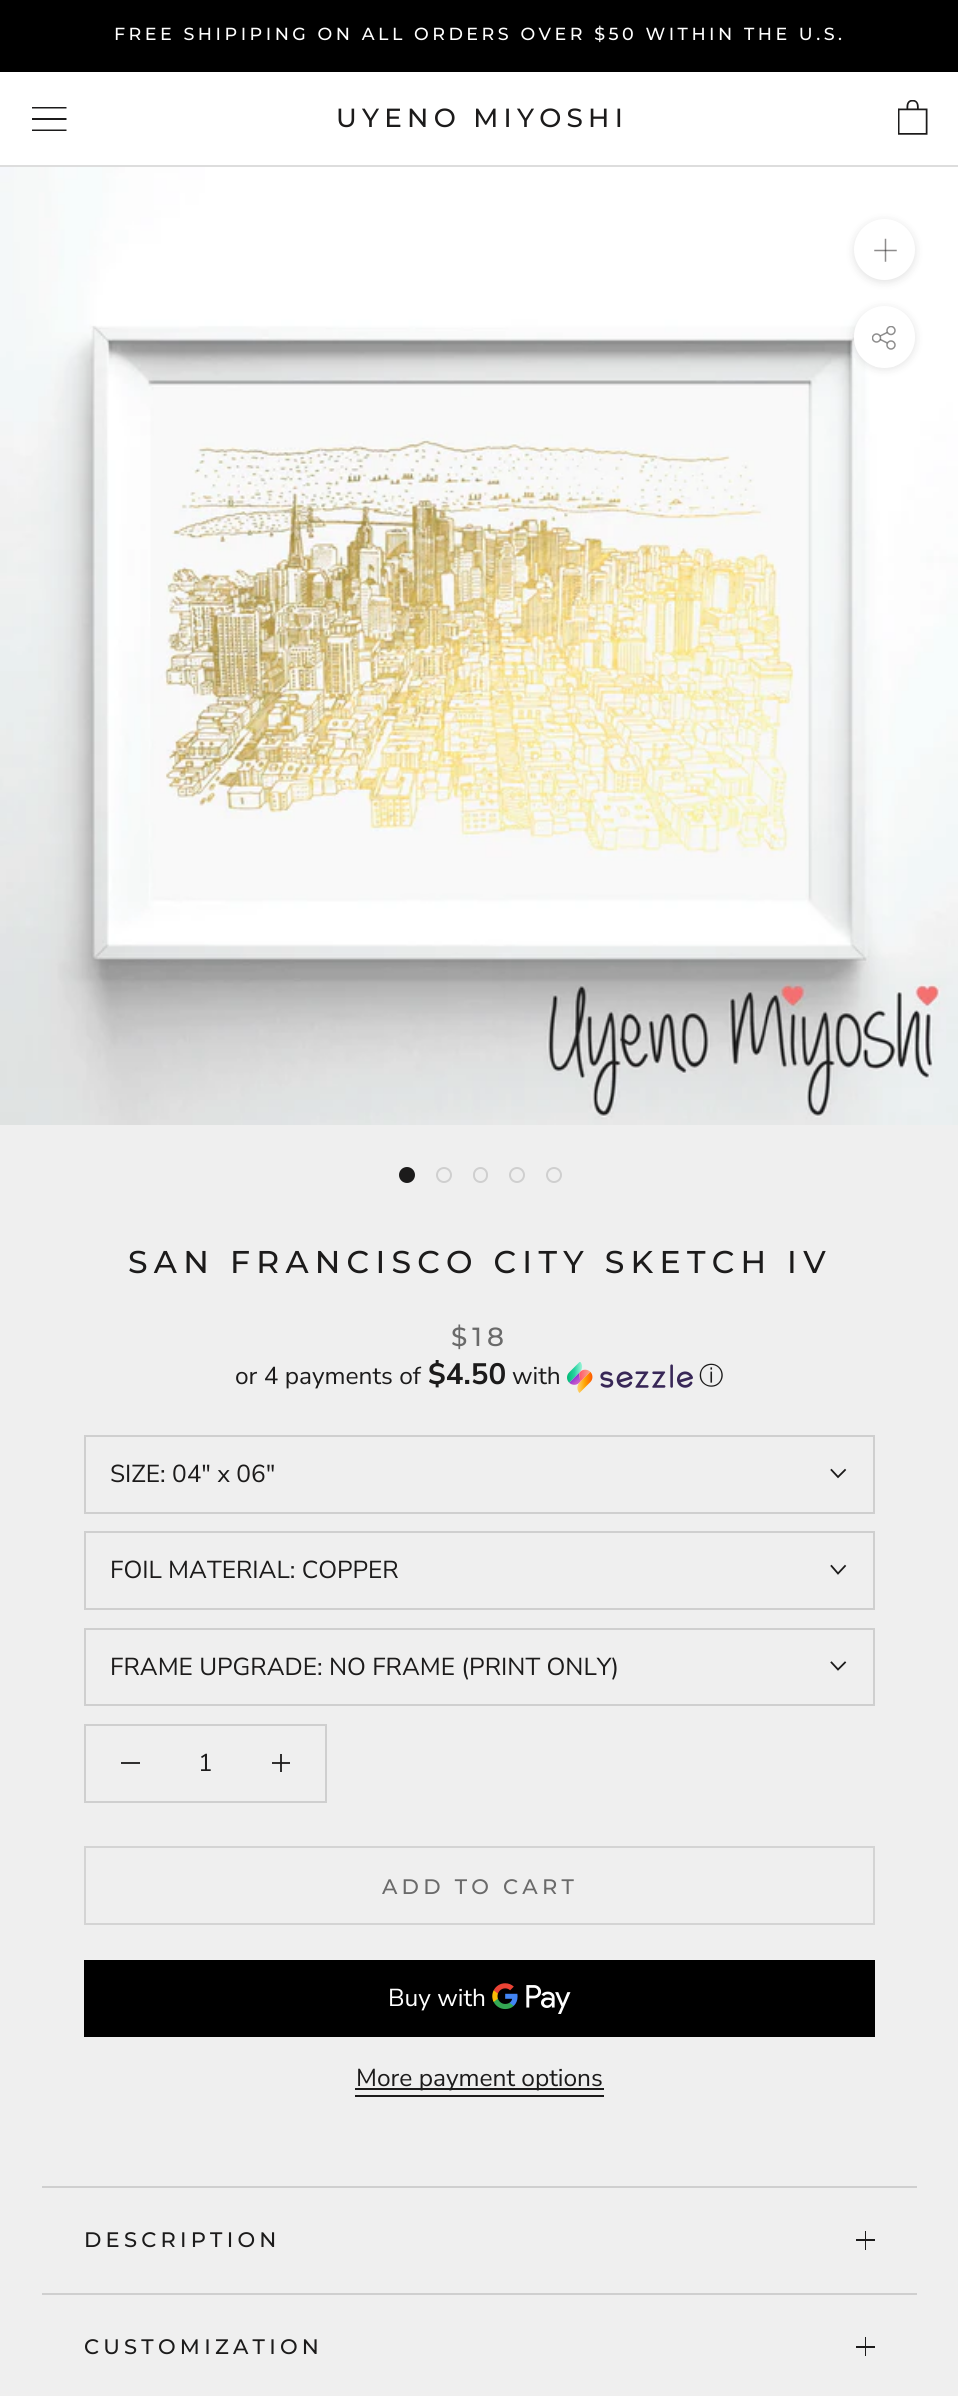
import math
import cairo

surface = cairo.ImageSurface(cairo.FORMAT_RGB24, 958, 2396)
ctx = cairo.Context(surface)
options = cairo.FontOptions()
options.set_hint_metrics(cairo.HINT_METRICS_OFF)
options.set_hint_style(cairo.HINT_STYLE_NONE)
ctx.set_font_options(options)
ctx.set_miter_limit(4)


def spaced_text(x, y, s, letter, word):
    ctx.move_to(x, y)
    for ch in s:
        ctx.show_text(ch)
        ctx.rel_move_to(letter + word * (ch == ' '), 0)


def round_rect(x, y, w, h, r):
    ctx.new_sub_path()
    for i, (u, v) in enumerate([(x + w - r, y + h - r), (x + r, y + h - r), (x + r, y + r), (x + w - r, y + r)]):
        ctx.arc(u, v, r, i * math.pi / 2, (i + 1) * math.pi / 2)
    ctx.close_path()


def shadow(x, y, w, h, r, blur, alpha):
    ctx.push_group_with_content(cairo.CONTENT_ALPHA)
    ctx.set_operator(cairo.OPERATOR_SOURCE)
    for i in range(15, -16, -2):
        e = blur * i / 6
        if min(w, h) + 2 * e > 0:
            ctx.set_source_rgba(0, 0, 0, alpha * math.erfc((i - 1) / 8.5) / 2)
            round_rect(x - e, y - e, w + 2 * e, h + 2 * e, max(0, min(r + e + blur * .6, min(w, h) / 2 + e)))
            ctx.fill()
    ctx.mask(ctx.pop_group())


def picture(path, x, y, w, h):
    ctx.save()
    ctx.set_source_surface(cairo.ImageSurface.create_from_png(path), x, y)
    ctx.rectangle(x, y, w, h)
    ctx.fill()
    ctx.restore()


ctx.set_source_rgb(0.937, 0.937, 0.937)
ctx.paint()
ctx.set_source_rgb(0.192, 0.188, 0.188)
ctx.rectangle(272, 1762, 18, 2)
ctx.fill()
ctx.set_source_rgb(0, 0, 0)
ctx.rectangle(0, 0, 958, 72)
ctx.fill()
ctx.select_font_face("Montserrat Medium")
ctx.set_font_size(17.5)
ctx.set_source_rgb(1, 1, 1)
spaced_text(114, 40, "FREE SHIPIPING ON ALL ORDERS OVER $50 WITHIN THE U.S.", 3.5, 0)
ctx.rectangle(0, 72, 958, 93)
ctx.fill()
ctx.set_source_rgb(0.867, 0.867, 0.867)
ctx.rectangle(0, 165, 958, 2)
ctx.fill()
ctx.save()
ctx.rectangle(32, 107, 35, 24)
ctx.clip()
ctx.set_source_rgb(0.11, 0.106, 0.106)
ctx.new_path()
ctx.move_to(31.5, 131)
ctx.line_to(31.5, 129.5)
ctx.line_to(66.5, 129.5)
ctx.line_to(66.5, 131)
ctx.close_path()
ctx.move_to(31.5, 118)
ctx.line_to(66.5, 118)
ctx.line_to(66.5, 120)
ctx.line_to(31.5, 120)
ctx.close_path()
ctx.move_to(31.5, 107)
ctx.line_to(66.5, 107)
ctx.line_to(66.5, 108.5)
ctx.line_to(31.5, 108.5)
ctx.close_path()
ctx.fill()
ctx.restore()
ctx.set_font_size(26.25)
ctx.set_source_rgb(0.11, 0.106, 0.106)
spaced_text(336, 127, "UYENO MIYOSHI", 5.25, 0)
picture("img1.png", 898, 100, 30, 35)
picture("img2.png", 0, 167, 958, 958)
ctx.arc(407, 1175, 7, 0, 2 * math.pi)
ctx.fill_preserve()
ctx.stroke()
ctx.arc(444, 1175, 7, 0, 2 * math.pi)
ctx.set_source_rgb(0.812, 0.812, 0.812)
ctx.stroke()
round_rect(474, 1168, 13, 14, 6.5)
ctx.stroke()
ctx.arc(517, 1175, 7, 0, 2 * math.pi)
ctx.stroke()
ctx.arc(554, 1175, 7, 0, 2 * math.pi)
ctx.stroke()
ctx.set_source_rgb(0.212, 0.212, 0.212)
shadow(854, 221, 61, 61, 30.5, 4.5, 0.15)
ctx.set_source_rgb(1, 1, 1)
ctx.arc(884.5, 249.5, 30.5, 0, 2 * math.pi)
ctx.fill()
ctx.new_path()
ctx.move_to(885.5, 239.5)
ctx.line_to(885.5, 261)
ctx.set_source_rgb(0.557, 0.553, 0.553)
ctx.set_line_width(1.5)
ctx.set_line_cap(cairo.LINE_CAP_SQUARE)
ctx.stroke()
ctx.new_path()
ctx.move_to(875, 250.5)
ctx.line_to(896, 250.5)
ctx.set_source_rgba(0.11, 0.106, 0.106, 0.5)
ctx.stroke()
ctx.set_source_rgb(0.212, 0.212, 0.212)
shadow(854, 308, 61, 61, 30.5, 4.5, 0.15)
ctx.set_source_rgb(1, 1, 1)
round_rect(854, 306, 61, 62, 30.5)
ctx.fill()
picture("img3.png", 872, 326, 24, 24)
ctx.save()
round_rect(854, 306, 61, 62, 30.5)
ctx.clip()
ctx.new_path()
ctx.move_to(895.5, 364)
ctx.line_to(874, 385.5)
ctx.move_to(895.5, 385.5)
ctx.line_to(874, 364)
ctx.set_line_cap(cairo.LINE_CAP_BUTT)
ctx.stroke()
ctx.restore()
ctx.set_font_size(31.5)
ctx.set_source_rgb(0.11, 0.106, 0.106)
spaced_text(128, 1273, "SAN FRANCISCO CITY SKETCH IV", 6.3, 0)
ctx.set_font_size(26.25)
ctx.set_source_rgb(0.416, 0.416, 0.416)
spaced_text(451, 1346, "$18", 5, 0)
ctx.select_font_face("Nunito Sans")
ctx.set_font_size(24.5)
ctx.set_source_rgb(0.11, 0.106, 0.106)
ctx.move_to(235, 1384)
ctx.show_text("or 4 payments of")
ctx.save()
ctx.rectangle(84, 1360, 791, 33)
ctx.clip()
ctx.select_font_face("Nunito Sans", cairo.FONT_SLANT_NORMAL, cairo.FONT_WEIGHT_BOLD)
ctx.set_font_size(29.5)
ctx.move_to(428, 1384)
ctx.show_text("$4.50")
ctx.restore()
ctx.move_to(512, 1384)
ctx.show_text("with")
picture("img4.png", 567, 1362, 126, 31)
ctx.select_font_face("WenQuanYi Zen Hei Medium")
ctx.move_to(699, 1384)
ctx.show_text("ⓘ")
ctx.rectangle(85, 1436, 789, 77)
ctx.set_source_rgb(0.812, 0.812, 0.812)
ctx.set_line_width(2)
ctx.set_line_cap(cairo.LINE_CAP_BUTT)
ctx.stroke()
ctx.select_font_face("Nunito Sans")
ctx.set_source_rgb(0.11, 0.106, 0.106)
ctx.move_to(110, 1482)
ctx.show_text("SIZE: 04\" x 06\"")
ctx.new_path()
ctx.move_to(845, 1470)
ctx.line_to(838, 1477)
ctx.line_to(831.5, 1470)
ctx.set_line_width(1.8)
ctx.set_line_cap(cairo.LINE_CAP_SQUARE)
ctx.stroke()
ctx.rectangle(85, 1532, 789, 77)
ctx.set_source_rgb(0.812, 0.812, 0.812)
ctx.set_line_width(2)
ctx.set_line_cap(cairo.LINE_CAP_BUTT)
ctx.stroke()
ctx.set_source_rgb(0.11, 0.106, 0.106)
ctx.move_to(110, 1578)
ctx.show_text("FOIL MATERIAL: COPPER")
ctx.new_path()
ctx.move_to(845, 1566)
ctx.line_to(838, 1573.5)
ctx.line_to(831.5, 1566)
ctx.set_line_width(1.8)
ctx.set_line_cap(cairo.LINE_CAP_SQUARE)
ctx.stroke()
ctx.rectangle(85, 1629, 789, 76)
ctx.set_source_rgb(0.812, 0.812, 0.812)
ctx.set_line_width(2)
ctx.set_line_cap(cairo.LINE_CAP_BUTT)
ctx.stroke()
ctx.set_source_rgb(0.11, 0.106, 0.106)
ctx.move_to(110, 1675)
ctx.show_text("FRAME UPGRADE: NO FRAME (PRINT ONLY)")
ctx.new_path()
ctx.move_to(845, 1662.5)
ctx.line_to(838, 1669.5)
ctx.line_to(831.5, 1662.5)
ctx.set_line_width(1.8)
ctx.set_line_cap(cairo.LINE_CAP_SQUARE)
ctx.stroke()
ctx.rectangle(85, 1725, 241, 77)
ctx.set_source_rgb(0.812, 0.812, 0.812)
ctx.set_line_width(2)
ctx.set_line_cap(cairo.LINE_CAP_BUTT)
ctx.stroke()
ctx.set_source_rgb(0.192, 0.188, 0.188)
ctx.rectangle(121, 1762, 19, 2)
ctx.fill()
ctx.set_source_rgb(0.11, 0.106, 0.106)
ctx.move_to(198, 1771)
ctx.show_text("1")
ctx.set_source_rgb(0.192, 0.188, 0.188)
ctx.rectangle(280, 1754, 2, 18)
ctx.fill()
ctx.set_source_rgb(0.118, 0.114, 0.114)
ctx.rectangle(280, 1762, 2, 2)
ctx.fill()
ctx.rectangle(85, 1847, 789, 77)
ctx.set_source_rgb(0.831, 0.831, 0.831)
ctx.stroke()
ctx.select_font_face("Montserrat Medium")
ctx.set_font_size(21)
ctx.set_source_rgb(0.416, 0.416, 0.416)
spaced_text(382, 1894, "ADD TO CART", 4.25, 0)
ctx.set_source_rgb(0, 0, 0)
ctx.rectangle(84, 1960, 791, 77)
ctx.fill()
ctx.select_font_face("Nunito Sans")
ctx.set_font_size(24.5)
ctx.set_source_rgb(1, 1, 1)
ctx.move_to(388, 2006)
ctx.show_text("Buy with")
picture("img5.png", 492, 1983, 79, 31)
ctx.set_source_rgb(0.11, 0.106, 0.106)
ctx.rectangle(355, 2088, 249, 2)
ctx.fill()
ctx.move_to(356, 2086)
ctx.show_text("More payment options")
ctx.rectangle(355, 2095, 249, 2)
ctx.fill()
ctx.set_source_rgb(0.812, 0.812, 0.812)
ctx.rectangle(42, 2186, 875, 2)
ctx.fill()
ctx.rectangle(42, 2293, 875, 2)
ctx.fill()
ctx.select_font_face("Montserrat Medium")
ctx.set_font_size(21)
ctx.set_source_rgb(0.11, 0.106, 0.106)
spaced_text(84, 2247, "DESCRIPTION", 4.25, 0)
ctx.rectangle(865, 2231, 1, 19)
ctx.fill()
ctx.rectangle(856, 2239, 19, 2)
ctx.fill()
spaced_text(84, 2354, "CUSTOMIZATION", 4.25, 0)
ctx.rectangle(865, 2337, 1, 19)
ctx.fill()
ctx.rectangle(856, 2346, 19, 2)
ctx.fill()
surface.write_to_png("page.png")
